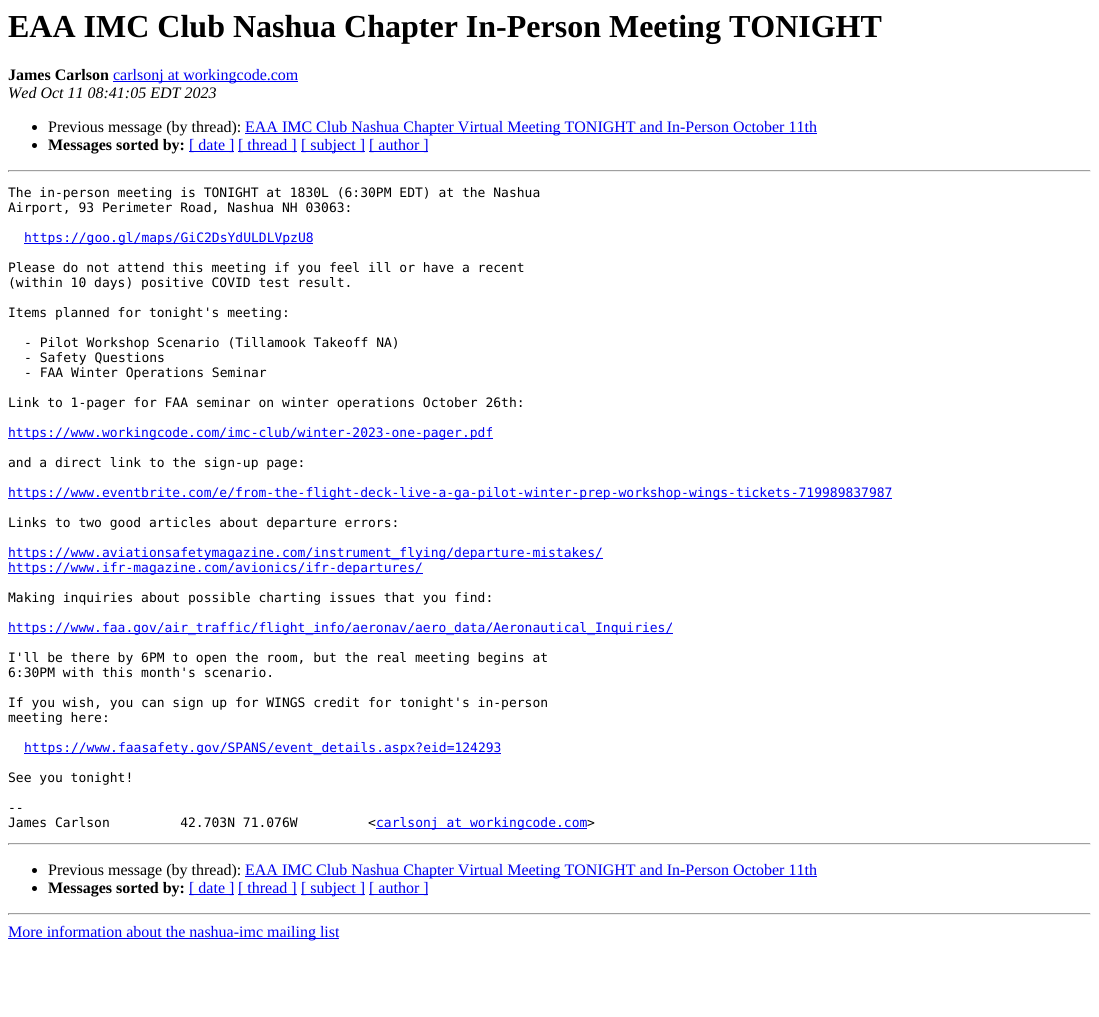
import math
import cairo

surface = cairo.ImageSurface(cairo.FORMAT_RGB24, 1099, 1017)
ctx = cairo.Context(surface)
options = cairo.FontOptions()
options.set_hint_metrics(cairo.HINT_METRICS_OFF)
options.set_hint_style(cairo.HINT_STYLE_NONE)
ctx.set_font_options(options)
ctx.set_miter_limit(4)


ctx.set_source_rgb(1, 1, 1)
ctx.paint()
ctx.select_font_face("Liberation Serif", cairo.FONT_SLANT_NORMAL, cairo.FONT_WEIGHT_BOLD)
ctx.set_font_size(32)
ctx.set_source_rgb(0, 0, 0)
ctx.move_to(8, 37)
ctx.show_text("EAA IMC Club Nashua Chapter In-Person Meeting TONIGHT")
ctx.set_font_size(16)
ctx.move_to(8, 80)
ctx.show_text("James Carlson")
ctx.set_source_rgb(0, 0, 0.933)
ctx.rectangle(113, 81, 185, 1)
ctx.fill()
ctx.select_font_face("Liberation Serif")
ctx.move_to(113, 80)
ctx.show_text("carlsonj at workingcode.com")
ctx.select_font_face("Liberation Serif", cairo.FONT_SLANT_ITALIC)
ctx.set_source_rgb(0, 0, 0)
ctx.move_to(8, 98)
ctx.show_text("Wed Oct 11 08:41:05 EDT 2023")
ctx.new_path()
ctx.arc(34.5, 127.5, 2.5, 0, 2 * math.pi)
ctx.fill()
ctx.select_font_face("Liberation Serif")
ctx.move_to(48, 132)
ctx.show_text("Previous message (by thread):")
ctx.set_source_rgb(0, 0, 0.933)
ctx.rectangle(245, 133, 572, 1)
ctx.fill()
ctx.move_to(245, 132)
ctx.show_text("EAA IMC Club Nashua Chapter Virtual Meeting TONIGHT and In-Person October 11th")
ctx.set_source_rgb(0, 0, 0)
ctx.new_path()
ctx.arc(34.5, 145.5, 2.5, 0, 2 * math.pi)
ctx.fill()
ctx.select_font_face("Liberation Serif", cairo.FONT_SLANT_NORMAL, cairo.FONT_WEIGHT_BOLD)
ctx.move_to(48, 150)
ctx.show_text("Messages sorted by:")
ctx.set_source_rgb(0, 0, 0.933)
ctx.rectangle(189, 151, 45, 1)
ctx.fill()
ctx.select_font_face("Liberation Serif")
ctx.move_to(189, 150)
ctx.show_text("[ date ]")
ctx.rectangle(238, 151, 59, 1)
ctx.fill()
ctx.move_to(238, 150)
ctx.show_text("[ thread ]")
ctx.rectangle(301, 151, 64, 1)
ctx.fill()
ctx.move_to(301, 150)
ctx.show_text("[ subject ]")
ctx.rectangle(369, 151, 59, 1)
ctx.fill()
ctx.move_to(369, 150)
ctx.show_text("[ author ]")
ctx.set_source_rgb(0.624, 0.624, 0.624)
ctx.rectangle(8, 170, 1083, 1)
ctx.fill()
ctx.set_source_rgb(0.933, 0.933, 0.933)
ctx.rectangle(1090, 170, 1, 2)
ctx.fill()
ctx.rectangle(8, 171, 1083, 1)
ctx.fill()
ctx.set_source_rgb(0.624, 0.624, 0.624)
ctx.rectangle(8, 170, 1, 2)
ctx.fill()
ctx.select_font_face("DejaVu Sans Mono")
ctx.set_font_size(13)
ctx.set_source_rgb(0, 0, 0)
ctx.move_to(8, 197)
ctx.show_text("The in-person meeting is TONIGHT at 1830L (6:30PM EDT) at the Nashua")
ctx.move_to(8, 212)
ctx.show_text("Airport, 93 Perimeter Road, Nashua NH 03063:")
ctx.set_source_rgb(0, 0, 0.933)
ctx.rectangle(24, 243, 289, 1)
ctx.fill()
ctx.move_to(24, 242)
ctx.show_text("https://goo.gl/maps/GiC2DsYdULDLVpzU8")
ctx.set_source_rgb(0, 0, 0)
ctx.move_to(8, 272)
ctx.show_text("Please do not attend this meeting if you feel ill or have a recent")
ctx.move_to(8, 287)
ctx.show_text("(within 10 days) positive COVID test result.")
ctx.move_to(8, 317)
ctx.show_text("Items planned for tonight's meeting:")
ctx.move_to(24, 347)
ctx.show_text("- Pilot Workshop Scenario (Tillamook Takeoff NA)")
ctx.move_to(24, 362)
ctx.show_text("- Safety Questions")
ctx.move_to(24, 377)
ctx.show_text("- FAA Winter Operations Seminar")
ctx.move_to(8, 407)
ctx.show_text("Link to 1-pager for FAA seminar on winter operations October 26th:")
ctx.set_source_rgb(0, 0, 0.933)
ctx.rectangle(8, 438, 485, 1)
ctx.fill()
ctx.move_to(8, 437)
ctx.show_text("https://www.workingcode.com/imc-club/winter-2023-one-pager.pdf")
ctx.set_source_rgb(0, 0, 0)
ctx.move_to(8, 467)
ctx.show_text("and a direct link to the sign-up page:")
ctx.set_source_rgb(0, 0, 0.933)
ctx.rectangle(8, 498, 884, 1)
ctx.fill()
ctx.move_to(8, 497)
ctx.show_text("https://www.eventbrite.com/e/from-the-flight-deck-live-a-ga-pilot-winter-prep-workshop-wings-tickets-719989837987")
ctx.set_source_rgb(0, 0, 0)
ctx.move_to(8, 527)
ctx.show_text("Links to two good articles about departure errors:")
ctx.set_source_rgb(0, 0, 0.933)
ctx.rectangle(8, 558, 595, 1)
ctx.fill()
ctx.move_to(8, 557)
ctx.show_text("https://www.aviationsafetymagazine.com/instrument_flying/departure-mistakes/")
ctx.rectangle(8, 573, 415, 1)
ctx.fill()
ctx.move_to(8, 572)
ctx.show_text("https://www.ifr-magazine.com/avionics/ifr-departures/")
ctx.set_source_rgb(0, 0, 0)
ctx.move_to(8, 602)
ctx.show_text("Making inquiries about possible charting issues that you find:")
ctx.set_source_rgb(0, 0, 0.933)
ctx.rectangle(8, 633, 665, 1)
ctx.fill()
ctx.move_to(8, 632)
ctx.show_text("https://www.faa.gov/air_traffic/flight_info/aeronav/aero_data/Aeronautical_Inquiries/")
ctx.set_source_rgb(0, 0, 0)
ctx.move_to(8, 662)
ctx.show_text("I'll be there by 6PM to open the room, but the real meeting begins at")
ctx.move_to(8, 677)
ctx.show_text("6:30PM with this month's scenario.")
ctx.move_to(8, 707)
ctx.show_text("If you wish, you can sign up for WINGS credit for tonight's in-person")
ctx.move_to(8, 722)
ctx.show_text("meeting here:")
ctx.set_source_rgb(0, 0, 0.933)
ctx.rectangle(24, 753, 477, 1)
ctx.fill()
ctx.move_to(24, 752)
ctx.show_text("https://www.faasafety.gov/SPANS/event_details.aspx?eid=124293")
ctx.set_source_rgb(0, 0, 0)
ctx.move_to(8, 782)
ctx.show_text("See you tonight!")
ctx.move_to(8, 812)
ctx.show_text("--")
ctx.move_to(8, 827)
ctx.show_text("James Carlson         42.703N 71.076W         <")
ctx.set_source_rgb(0, 0, 0.933)
ctx.rectangle(376, 828, 211, 1)
ctx.fill()
ctx.move_to(376, 827)
ctx.show_text("carlsonj at workingcode.com")
ctx.set_source_rgb(0, 0, 0)
ctx.move_to(587, 827)
ctx.show_text(">")
ctx.set_source_rgb(0.624, 0.624, 0.624)
ctx.rectangle(8, 843, 1083, 1)
ctx.fill()
ctx.set_source_rgb(0.933, 0.933, 0.933)
ctx.rectangle(1090, 843, 1, 2)
ctx.fill()
ctx.rectangle(8, 844, 1083, 1)
ctx.fill()
ctx.set_source_rgb(0.624, 0.624, 0.624)
ctx.rectangle(8, 843, 1, 2)
ctx.fill()
ctx.set_source_rgb(0, 0, 0)
ctx.arc(34.5, 870.5, 2.5, 0, 2 * math.pi)
ctx.fill()
ctx.select_font_face("Liberation Serif")
ctx.set_font_size(16)
ctx.move_to(48, 875)
ctx.show_text("Previous message (by thread):")
ctx.set_source_rgb(0, 0, 0.933)
ctx.rectangle(245, 876, 572, 1)
ctx.fill()
ctx.move_to(245, 875)
ctx.show_text("EAA IMC Club Nashua Chapter Virtual Meeting TONIGHT and In-Person October 11th")
ctx.set_source_rgb(0, 0, 0)
ctx.new_path()
ctx.arc(34.5, 888.5, 2.5, 0, 2 * math.pi)
ctx.fill()
ctx.select_font_face("Liberation Serif", cairo.FONT_SLANT_NORMAL, cairo.FONT_WEIGHT_BOLD)
ctx.move_to(48, 893)
ctx.show_text("Messages sorted by:")
ctx.set_source_rgb(0, 0, 0.933)
ctx.rectangle(189, 894, 45, 1)
ctx.fill()
ctx.select_font_face("Liberation Serif")
ctx.move_to(189, 893)
ctx.show_text("[ date ]")
ctx.rectangle(238, 894, 59, 1)
ctx.fill()
ctx.move_to(238, 893)
ctx.show_text("[ thread ]")
ctx.rectangle(301, 894, 64, 1)
ctx.fill()
ctx.move_to(301, 893)
ctx.show_text("[ subject ]")
ctx.rectangle(369, 894, 59, 1)
ctx.fill()
ctx.move_to(369, 893)
ctx.show_text("[ author ]")
ctx.set_source_rgb(0.624, 0.624, 0.624)
ctx.rectangle(8, 913, 1083, 1)
ctx.fill()
ctx.set_source_rgb(0.933, 0.933, 0.933)
ctx.rectangle(1090, 913, 1, 2)
ctx.fill()
ctx.rectangle(8, 914, 1083, 1)
ctx.fill()
ctx.set_source_rgb(0.624, 0.624, 0.624)
ctx.rectangle(8, 913, 1, 2)
ctx.fill()
ctx.set_source_rgb(0, 0, 0.933)
ctx.rectangle(8, 938, 331, 1)
ctx.fill()
ctx.move_to(8, 937)
ctx.show_text("More information about the nashua-imc mailing list")
surface.write_to_png("page.png")
